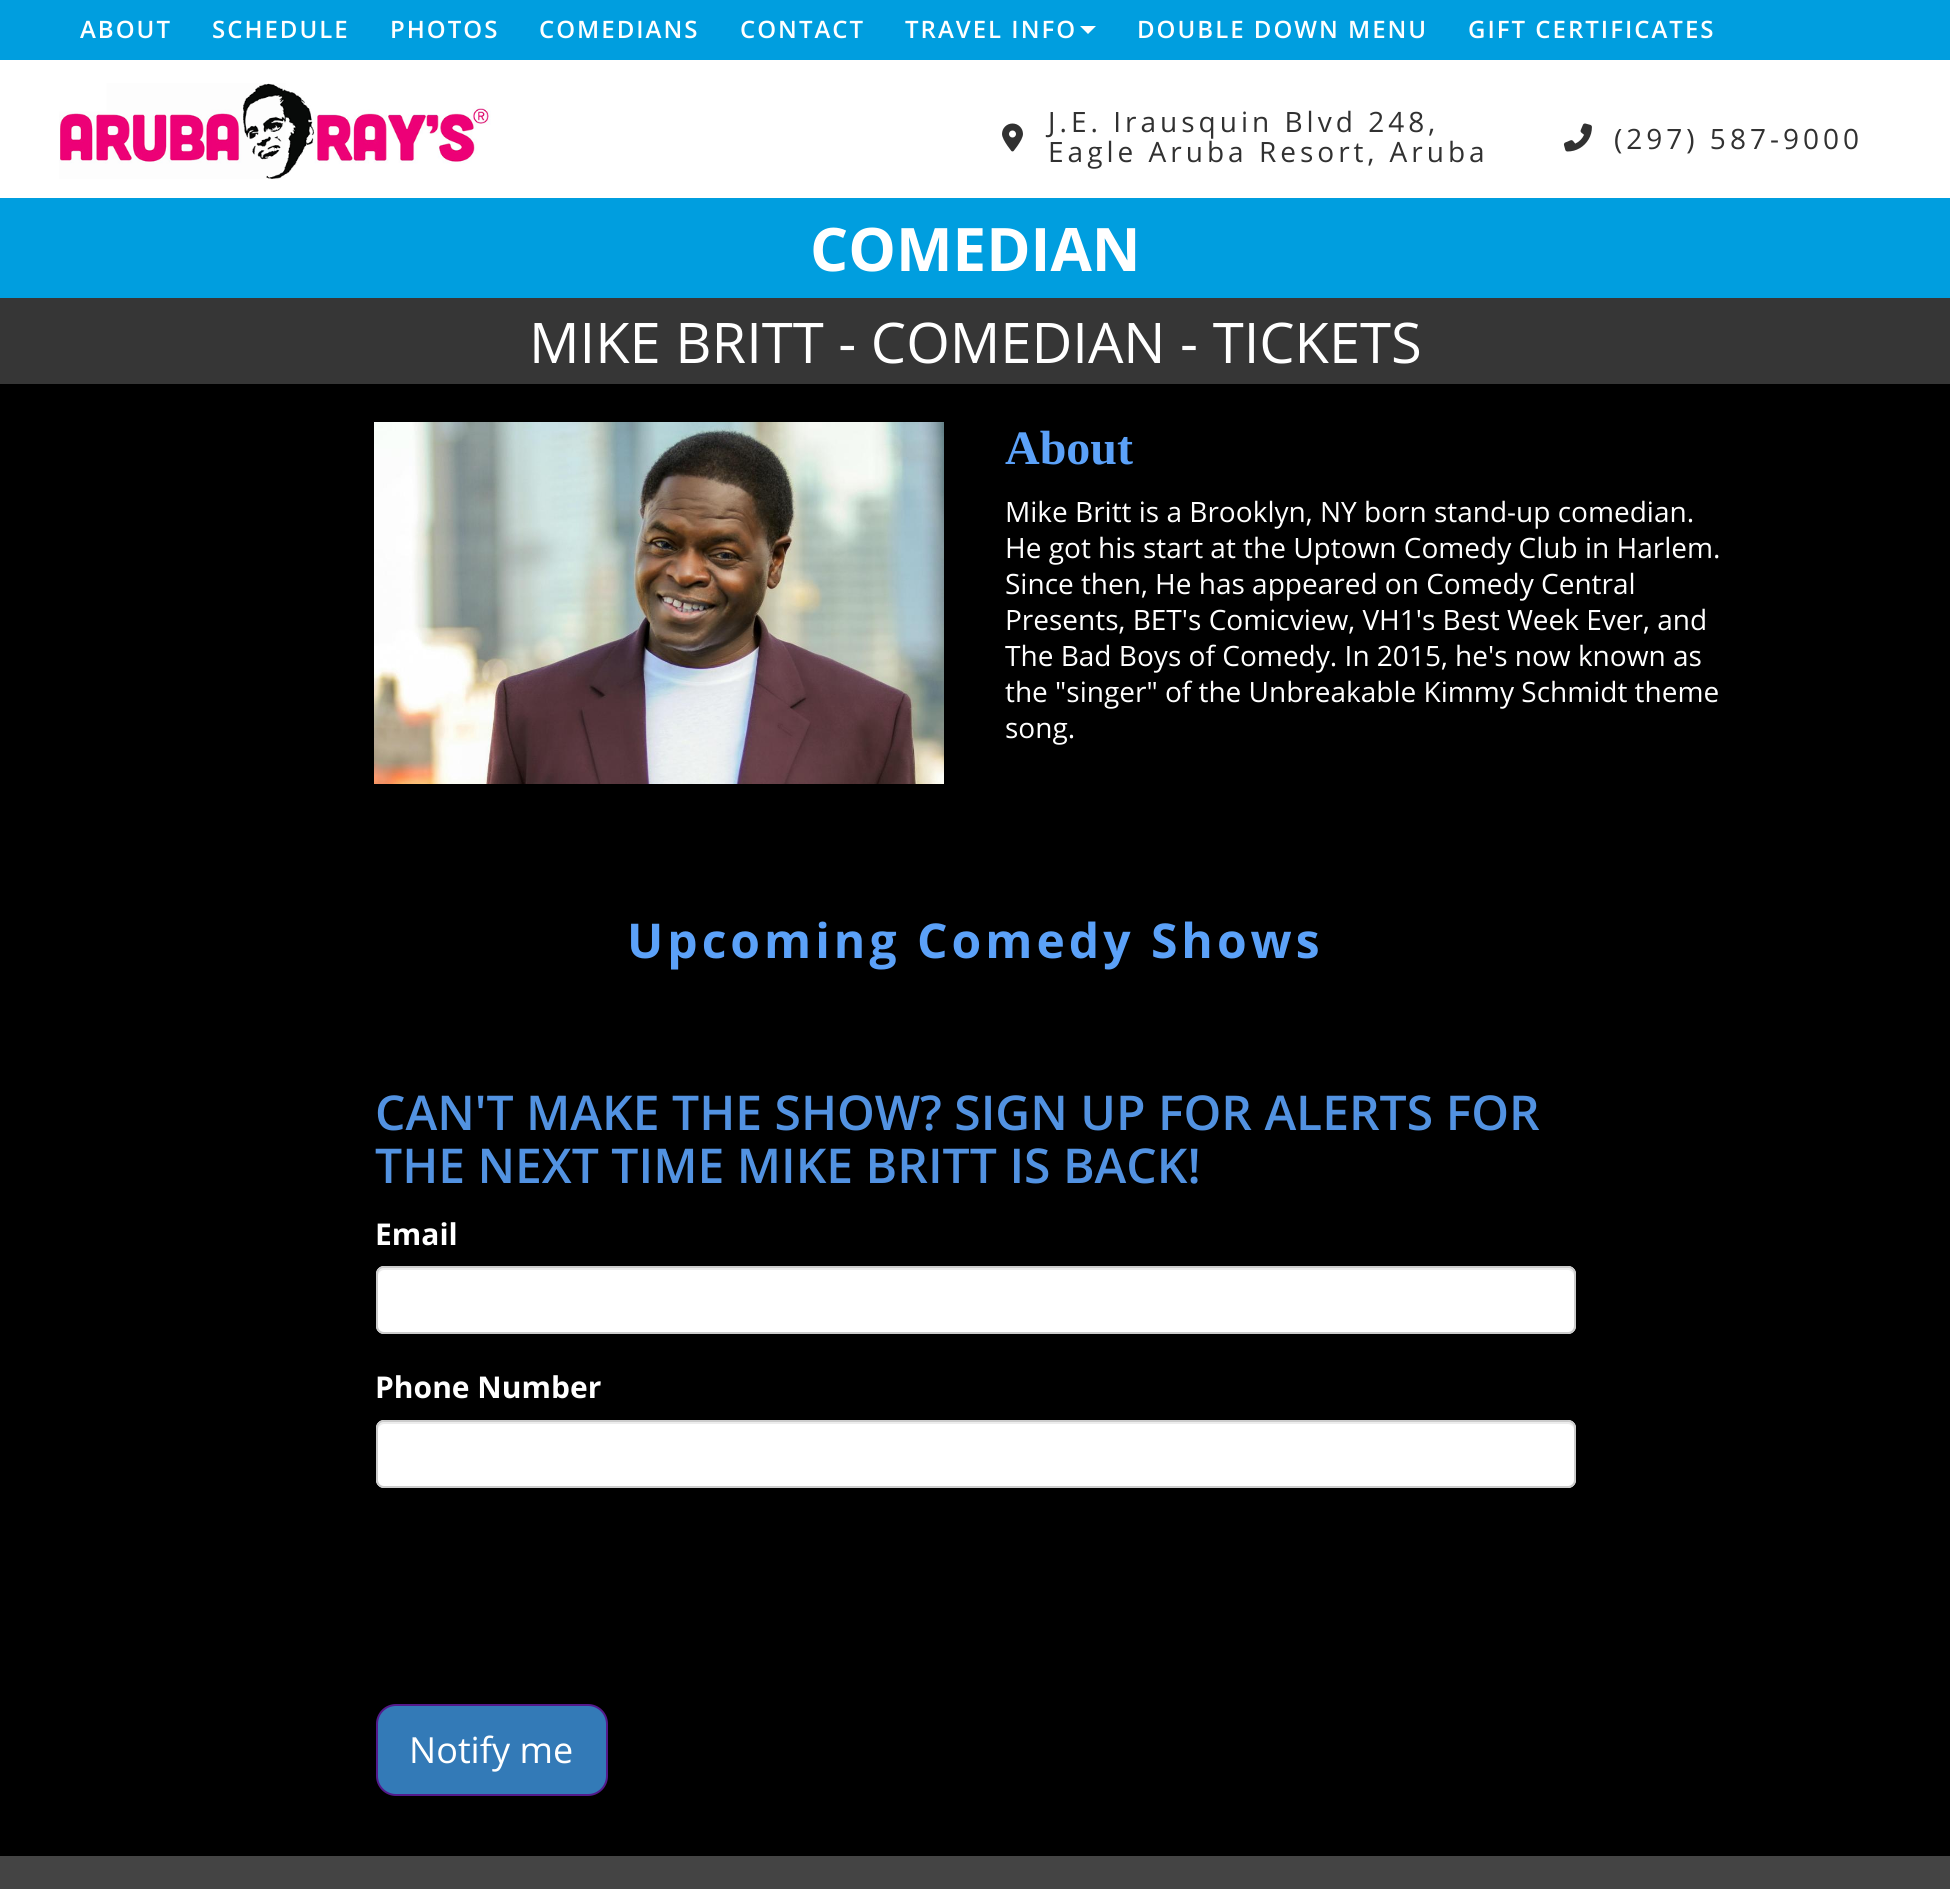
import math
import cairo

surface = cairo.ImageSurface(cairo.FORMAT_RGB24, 1950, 1889)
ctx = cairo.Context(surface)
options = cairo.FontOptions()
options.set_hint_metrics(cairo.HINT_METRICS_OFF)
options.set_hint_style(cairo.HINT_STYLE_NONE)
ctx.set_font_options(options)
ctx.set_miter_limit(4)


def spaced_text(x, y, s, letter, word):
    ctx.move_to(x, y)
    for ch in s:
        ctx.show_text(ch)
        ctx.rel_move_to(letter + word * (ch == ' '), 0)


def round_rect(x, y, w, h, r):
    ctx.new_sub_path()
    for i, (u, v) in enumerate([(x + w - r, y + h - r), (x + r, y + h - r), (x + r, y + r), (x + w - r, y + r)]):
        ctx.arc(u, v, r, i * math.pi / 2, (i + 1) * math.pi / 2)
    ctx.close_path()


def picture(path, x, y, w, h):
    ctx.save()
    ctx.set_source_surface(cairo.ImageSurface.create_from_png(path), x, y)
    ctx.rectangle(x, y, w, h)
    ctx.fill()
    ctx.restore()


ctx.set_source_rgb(0, 0.62, 0.875)
ctx.paint()
ctx.select_font_face("Open Sans SemiBold")
ctx.set_font_size(24)
ctx.set_source_rgb(1, 1, 1)
spaced_text(80, 38, "ABOUT", 2, 0)
spaced_text(212, 38, "SCHEDULE", 2, 0)
spaced_text(390, 38, "PHOTOS", 2, 0)
spaced_text(539, 38, "COMEDIANS", 2, 0)
spaced_text(740, 38, "CONTACT", 2, 0)
spaced_text(905, 38, "TRAVEL INFO", 2, 0)
ctx.new_path()
ctx.move_to(1080, 26)
ctx.line_to(1096, 26)
ctx.line_to(1088, 34)
ctx.close_path()
ctx.fill()
spaced_text(1137, 38, "DOUBLE DOWN MENU", 2, 0)
spaced_text(1468, 38, "GIFT CERTIFICATES", 2, 0)
ctx.rectangle(0, 60, 1950, 138)
ctx.fill()
picture("img1.png", 59, 83, 432, 96)
picture("img2.png", 1002, 123, 21, 29)
ctx.select_font_face("Open Sans")
ctx.set_font_size(28)
ctx.set_source_rgb(0.192, 0.192, 0.192)
spaced_text(1048, 132, "J.E. Irausquin Blvd 248,", 4, 0)
spaced_text(1048, 162, "Eagle Aruba Resort, Aruba", 4, 0)
picture("img3.png", 1563, 123, 29, 29)
spaced_text(1614, 149, "(297) 587-9000", 4, 0)
ctx.select_font_face("Open Sans", cairo.FONT_SLANT_NORMAL, cairo.FONT_WEIGHT_BOLD)
ctx.set_font_size(60)
ctx.set_source_rgb(1, 1, 1)
ctx.move_to(810, 271)
ctx.show_text("COMEDIAN")
ctx.set_source_rgb(0.212, 0.212, 0.212)
ctx.rectangle(0, 298, 1950, 86)
ctx.fill()
ctx.select_font_face("Open Sans")
ctx.set_font_size(56)
ctx.set_source_rgb(1, 1, 1)
ctx.move_to(529, 363)
ctx.show_text("MIKE BRITT - COMEDIAN - TICKETS")
ctx.set_source_rgb(0, 0, 0)
ctx.rectangle(0, 384, 1950, 1472)
ctx.fill()
picture("img4.png", 374, 422, 570, 362)
ctx.select_font_face("Liberation Serif", cairo.FONT_SLANT_NORMAL, cairo.FONT_WEIGHT_BOLD)
ctx.set_font_size(48)
ctx.set_source_rgb(0.357, 0.631, 0.969)
ctx.move_to(1005, 464)
ctx.show_text("About")
ctx.select_font_face("Open Sans")
ctx.set_font_size(28)
ctx.set_source_rgb(1, 1, 1)
ctx.move_to(1005, 522)
ctx.show_text("Mike Britt is a Brooklyn, NY born stand-up comedian.")
ctx.move_to(1005, 558)
ctx.show_text("He got his start at the Uptown Comedy Club in Harlem.")
ctx.move_to(1005, 594)
ctx.show_text("Since then, He has appeared on Comedy Central")
ctx.move_to(1005, 630)
ctx.show_text("Presents, BET's Comicview, VH1's Best Week Ever, and")
ctx.move_to(1005, 666)
ctx.show_text("The Bad Boys of Comedy. In 2015, he's now known as")
ctx.move_to(1005, 702)
ctx.show_text("the \"singer\" of the Unbreakable Kimmy Schmidt theme")
ctx.move_to(1005, 738)
ctx.show_text("song.")
ctx.select_font_face("Open Sans", cairo.FONT_SLANT_NORMAL, cairo.FONT_WEIGHT_BOLD)
ctx.set_font_size(48)
ctx.set_source_rgb(0.357, 0.631, 0.969)
spaced_text(627, 958, "Upcoming Comedy Shows", 4, 0)
ctx.select_font_face("Open Sans SemiBold")
ctx.set_source_rgb(0.322, 0.573, 0.882)
ctx.move_to(375, 1130)
ctx.show_text("CAN'T MAKE THE SHOW? SIGN UP FOR ALERTS FOR")
ctx.move_to(375, 1183)
ctx.show_text("THE NEXT TIME MIKE BRITT IS BACK!")
ctx.select_font_face("Open Sans", cairo.FONT_SLANT_NORMAL, cairo.FONT_WEIGHT_BOLD)
ctx.set_font_size(30)
ctx.set_source_rgb(1, 1, 1)
ctx.move_to(375, 1245)
ctx.show_text("Email")
round_rect(376, 1266, 1200, 68, 8)
ctx.fill()
ctx.set_source_rgb(0.925, 0.925, 0.925)
ctx.new_path()
ctx.move_to(384, 1270)
ctx.line_to(1568, 1270)
ctx.curve_to(1571, 1270, 1574, 1273, 1574, 1276)
ctx.line_to(1574, 1274)
ctx.curve_to(1574, 1271, 1571, 1268, 1568, 1268)
ctx.line_to(384, 1268)
ctx.curve_to(381, 1268, 378, 1271, 378, 1274)
ctx.line_to(378, 1276)
ctx.curve_to(378, 1273, 381, 1270, 384, 1270)
ctx.close_path()
ctx.fill()
round_rect(377, 1267, 1198, 66, 7)
ctx.set_source_rgb(0.8, 0.8, 0.8)
ctx.stroke()
ctx.set_source_rgb(1, 1, 1)
ctx.move_to(375, 1398)
ctx.show_text("Phone Number")
round_rect(376, 1420, 1200, 68, 8)
ctx.fill()
ctx.set_source_rgb(0.925, 0.925, 0.925)
ctx.new_path()
ctx.move_to(384, 1424)
ctx.line_to(1568, 1424)
ctx.curve_to(1571, 1424, 1574, 1427, 1574, 1430)
ctx.line_to(1574, 1428)
ctx.curve_to(1574, 1425, 1571, 1422, 1568, 1422)
ctx.line_to(384, 1422)
ctx.curve_to(381, 1422, 378, 1425, 378, 1428)
ctx.line_to(378, 1430)
ctx.curve_to(378, 1427, 381, 1424, 384, 1424)
ctx.close_path()
ctx.fill()
round_rect(377, 1421, 1198, 66, 7)
ctx.set_source_rgb(0.8, 0.8, 0.8)
ctx.stroke()
ctx.set_source_rgb(0.2, 0.478, 0.718)
round_rect(377, 1705, 230, 90, 19)
ctx.fill_preserve()
ctx.set_source_rgb(0.329, 0.102, 0.545)
ctx.stroke()
ctx.select_font_face("Open Sans")
ctx.set_font_size(36)
ctx.set_source_rgb(1, 1, 1)
ctx.move_to(409, 1763)
ctx.show_text("Notify me")
ctx.set_source_rgb(0.267, 0.267, 0.267)
ctx.rectangle(0, 1856, 1950, 33)
ctx.fill()
surface.write_to_png("page.png")
